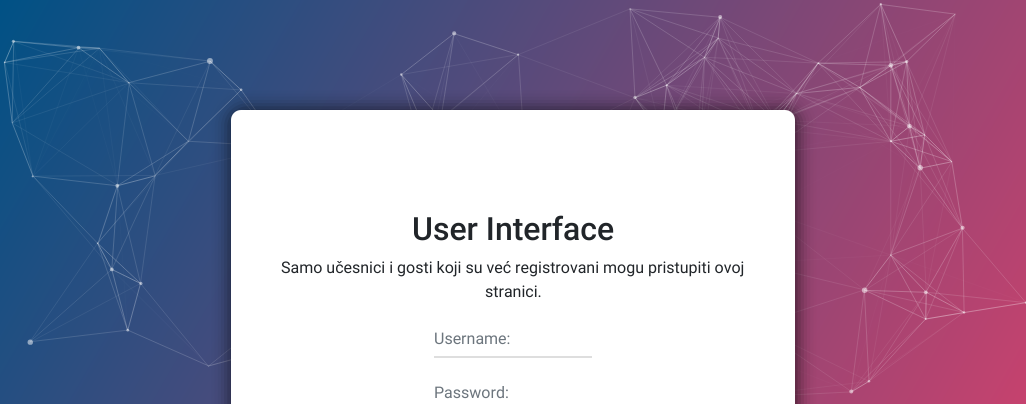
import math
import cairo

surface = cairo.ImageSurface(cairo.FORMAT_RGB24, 1026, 404)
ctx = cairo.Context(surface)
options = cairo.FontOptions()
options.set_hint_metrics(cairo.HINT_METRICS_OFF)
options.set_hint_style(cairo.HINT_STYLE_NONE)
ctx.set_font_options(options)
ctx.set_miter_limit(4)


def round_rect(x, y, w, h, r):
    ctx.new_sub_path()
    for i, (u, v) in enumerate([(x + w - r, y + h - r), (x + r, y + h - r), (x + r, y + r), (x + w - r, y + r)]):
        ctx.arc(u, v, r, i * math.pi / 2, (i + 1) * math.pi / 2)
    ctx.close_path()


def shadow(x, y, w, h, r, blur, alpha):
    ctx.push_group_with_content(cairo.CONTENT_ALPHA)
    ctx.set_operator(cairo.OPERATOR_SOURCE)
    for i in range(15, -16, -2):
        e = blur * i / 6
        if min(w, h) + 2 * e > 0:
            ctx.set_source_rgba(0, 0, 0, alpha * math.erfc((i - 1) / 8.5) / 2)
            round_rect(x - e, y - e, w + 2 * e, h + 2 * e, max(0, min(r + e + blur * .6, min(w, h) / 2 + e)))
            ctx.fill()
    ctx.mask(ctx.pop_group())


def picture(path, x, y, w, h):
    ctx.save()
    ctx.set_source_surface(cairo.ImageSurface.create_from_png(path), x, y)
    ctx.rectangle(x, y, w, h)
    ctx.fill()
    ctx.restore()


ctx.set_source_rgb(1, 1, 1)
ctx.paint()
gradient = cairo.LinearGradient(41, -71, 985, 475)
gradient.add_color_stop_rgba(0, 0, 0.318, 0.522, 1)
gradient.add_color_stop_rgba(1, 0.776, 0.259, 0.431, 1)
ctx.set_source(gradient)
ctx.rectangle(0, 0, 1026, 404)
ctx.fill()
picture("img1.png", 3, 3, 1023, 392)
ctx.set_source_rgb(0, 0, 0)
shadow(232, 111, 564, 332, 10, 9.5, 0.75)
ctx.set_source_rgb(1, 1, 1)
round_rect(231, 110, 564, 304, 10)
ctx.fill()
ctx.select_font_face("Roboto Medium")
ctx.set_font_size(32)
ctx.set_source_rgb(0.129, 0.145, 0.161)
ctx.move_to(412, 240)
ctx.show_text("User Interface")
ctx.select_font_face("Roboto")
ctx.set_font_size(16)
ctx.move_to(281, 273)
ctx.show_text("Samo učesnici i gosti koji su već registrovani mogu pristupiti ovoj")
ctx.move_to(485, 297)
ctx.show_text("stranici.")
ctx.set_source_rgb(0.871, 0.871, 0.871)
ctx.rectangle(434, 356, 158, 2)
ctx.fill()
ctx.set_source_rgb(0.424, 0.459, 0.49)
ctx.move_to(434, 344)
ctx.show_text("Username:")
ctx.move_to(434, 398)
ctx.show_text("Password:")
surface.write_to_png("page.png")
